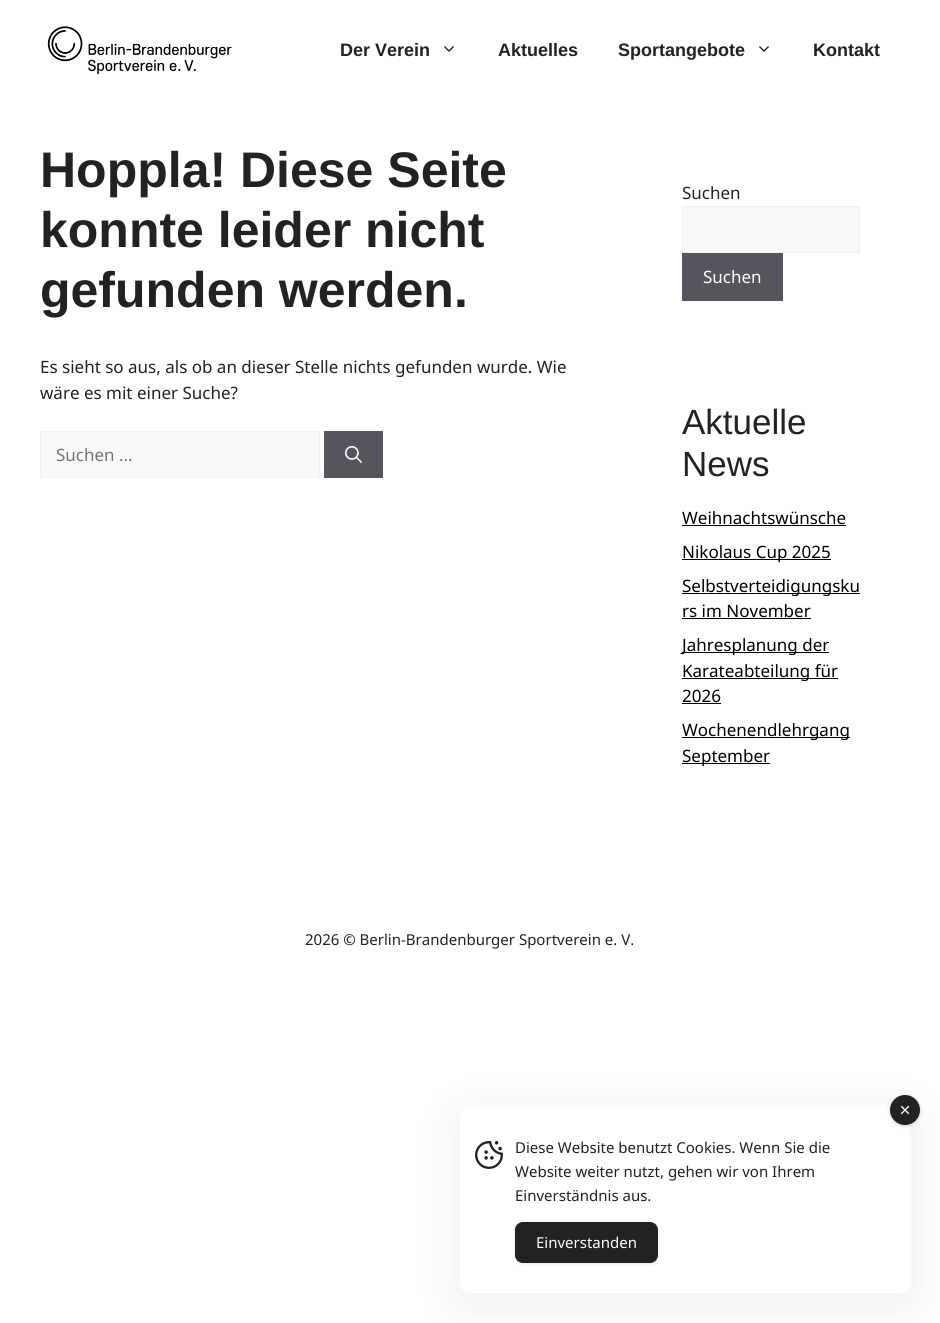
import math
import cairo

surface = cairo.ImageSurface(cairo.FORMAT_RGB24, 940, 1323)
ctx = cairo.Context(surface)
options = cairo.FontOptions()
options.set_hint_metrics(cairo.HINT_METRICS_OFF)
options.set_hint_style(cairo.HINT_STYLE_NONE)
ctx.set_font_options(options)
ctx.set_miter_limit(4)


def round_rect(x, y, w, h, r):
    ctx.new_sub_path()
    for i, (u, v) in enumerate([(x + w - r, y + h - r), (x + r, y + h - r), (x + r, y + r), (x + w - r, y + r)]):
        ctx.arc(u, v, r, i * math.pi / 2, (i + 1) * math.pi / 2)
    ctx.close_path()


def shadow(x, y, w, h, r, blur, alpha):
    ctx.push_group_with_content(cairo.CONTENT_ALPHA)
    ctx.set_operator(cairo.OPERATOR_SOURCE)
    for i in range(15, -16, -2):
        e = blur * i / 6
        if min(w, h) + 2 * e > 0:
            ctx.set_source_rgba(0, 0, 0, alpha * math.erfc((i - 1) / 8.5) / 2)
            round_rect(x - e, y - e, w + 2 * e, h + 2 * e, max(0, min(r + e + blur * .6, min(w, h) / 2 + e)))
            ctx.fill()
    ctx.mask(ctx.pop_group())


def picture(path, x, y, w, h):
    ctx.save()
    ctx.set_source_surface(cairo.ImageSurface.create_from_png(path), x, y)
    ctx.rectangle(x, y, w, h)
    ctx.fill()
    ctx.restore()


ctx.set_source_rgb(1, 1, 1)
ctx.paint()
picture("img1.png", 47, 26, 185, 49)
ctx.select_font_face("Liberation Sans", cairo.FONT_SLANT_NORMAL, cairo.FONT_WEIGHT_BOLD)
ctx.set_font_size(18)
ctx.set_source_rgb(0.133, 0.133, 0.133)
ctx.move_to(340, 56)
ctx.show_text("Der Verein")
picture("img2.png", 444, 46, 10, 6)
ctx.move_to(498, 56)
ctx.show_text("Aktuelles")
ctx.move_to(618, 56)
ctx.show_text("Sportangebote")
picture("img2.png", 759, 46, 10, 6)
ctx.move_to(813, 56)
ctx.show_text("Kontakt")
ctx.set_font_size(50)
ctx.move_to(40, 187)
ctx.show_text("Hoppla! Diese Seite")
ctx.move_to(40, 247)
ctx.show_text("konnte leider nicht")
ctx.move_to(40, 307)
ctx.show_text("gefunden werden.")
ctx.select_font_face("Noto Sans")
ctx.set_font_size(17)
ctx.move_to(40, 373)
ctx.show_text("Es sieht so aus, als ob an dieser Stelle nichts gefunden wurde. Wie")
ctx.move_to(40, 399)
ctx.show_text("wäre es mit einer Suche?")
ctx.set_source_rgb(0.969, 0.973, 0.976)
ctx.rectangle(40.5, 431.5, 279, 46)
ctx.fill_preserve()
ctx.set_source_rgb(0.941, 0.941, 0.941)
ctx.set_line_width(1)
ctx.stroke()
ctx.set_source_rgb(0.459, 0.459, 0.459)
ctx.move_to(56, 461)
ctx.show_text("Suchen …")
ctx.set_source_rgb(0.333, 0.333, 0.369)
ctx.rectangle(324, 431, 59, 47)
ctx.fill()
picture("img3.png", 345, 446, 17, 17)
ctx.set_source_rgb(0.133, 0.133, 0.133)
ctx.move_to(682, 199)
ctx.show_text("Suchen")
ctx.set_source_rgb(0.969, 0.973, 0.976)
ctx.rectangle(682.5, 206.5, 177, 46)
ctx.fill_preserve()
ctx.set_source_rgb(0.941, 0.941, 0.941)
ctx.stroke()
ctx.set_source_rgb(0.333, 0.333, 0.369)
ctx.rectangle(682, 253, 101, 48)
ctx.fill()
ctx.set_source_rgb(1, 1, 1)
ctx.move_to(703, 283)
ctx.show_text("Suchen")
ctx.select_font_face("Liberation Sans")
ctx.set_font_size(35)
ctx.set_source_rgb(0.133, 0.133, 0.133)
ctx.move_to(682, 434)
ctx.show_text("Aktuelle")
ctx.move_to(682, 476)
ctx.show_text("News")
ctx.select_font_face("Noto Sans")
ctx.set_font_size(17)
ctx.set_source_rgb(0, 0, 0)
ctx.move_to(682, 524)
ctx.show_text("Weihnachtswünsche")
ctx.rectangle(682, 525, 164, 1)
ctx.fill()
ctx.rectangle(682, 559, 149, 1)
ctx.fill()
ctx.move_to(682, 558)
ctx.show_text("Nikolaus Cup 2025")
ctx.rectangle(682, 593, 178, 1)
ctx.fill()
ctx.move_to(682, 592)
ctx.show_text("Selbstverteidigungsku")
ctx.move_to(682, 617)
ctx.show_text("rs im November")
ctx.rectangle(682, 618, 129, 1)
ctx.fill()
ctx.rectangle(682, 652, 147, 1)
ctx.fill()
ctx.move_to(682, 651)
ctx.show_text("Jahresplanung der")
ctx.rectangle(682, 678, 156, 1)
ctx.fill()
ctx.move_to(682, 677)
ctx.show_text("Karateabteilung für")
ctx.move_to(682, 702)
ctx.show_text("2026")
ctx.rectangle(682, 703, 39, 1)
ctx.fill()
ctx.rectangle(682, 737, 168, 1)
ctx.fill()
ctx.move_to(682, 736)
ctx.show_text("Wochenendlehrgang")
ctx.rectangle(682, 763, 88, 1)
ctx.fill()
ctx.move_to(682, 762)
ctx.show_text("September")
ctx.set_font_size(15)
ctx.set_source_rgb(0.133, 0.133, 0.133)
ctx.move_to(305, 945)
ctx.show_text("2026 © Berlin-Brandenburger Sportverein e. V.")
ctx.set_source_rgb(0, 0, 0)
shadow(450, 1105, 470, 208, 20, 20, 0.05)
ctx.set_source_rgb(1, 1, 1)
round_rect(460, 1105, 450, 188, 10)
ctx.fill()
ctx.set_source_rgb(0, 0, 0)
shadow(890, 1096, 30, 30, 15, 2, 0.2)
ctx.set_source_rgb(0.133, 0.133, 0.133)
ctx.arc(905, 1110, 15, 0, 2 * math.pi)
ctx.fill()
picture("img4.png", 900, 1105, 10, 10)
picture("img5.png", 475, 1141, 28, 28)
ctx.move_to(515, 1153)
ctx.show_text("Diese Website benutzt Cookies. Wenn Sie die")
ctx.move_to(515, 1177)
ctx.show_text("Website weiter nutzt, gehen wir von Ihrem")
ctx.move_to(515, 1201)
ctx.show_text("Einverständnis aus.")
ctx.set_source_rgb(0, 0, 0)
shadow(515, 1223, 143, 41, 8, 2, 0.1)
ctx.set_source_rgb(0.133, 0.133, 0.133)
round_rect(515.5, 1222.5, 142, 40, 7.5)
ctx.fill_preserve()
ctx.stroke()
ctx.set_source_rgb(1, 1, 1)
ctx.move_to(536, 1248)
ctx.show_text("Einverstanden")
surface.write_to_png("page.png")
